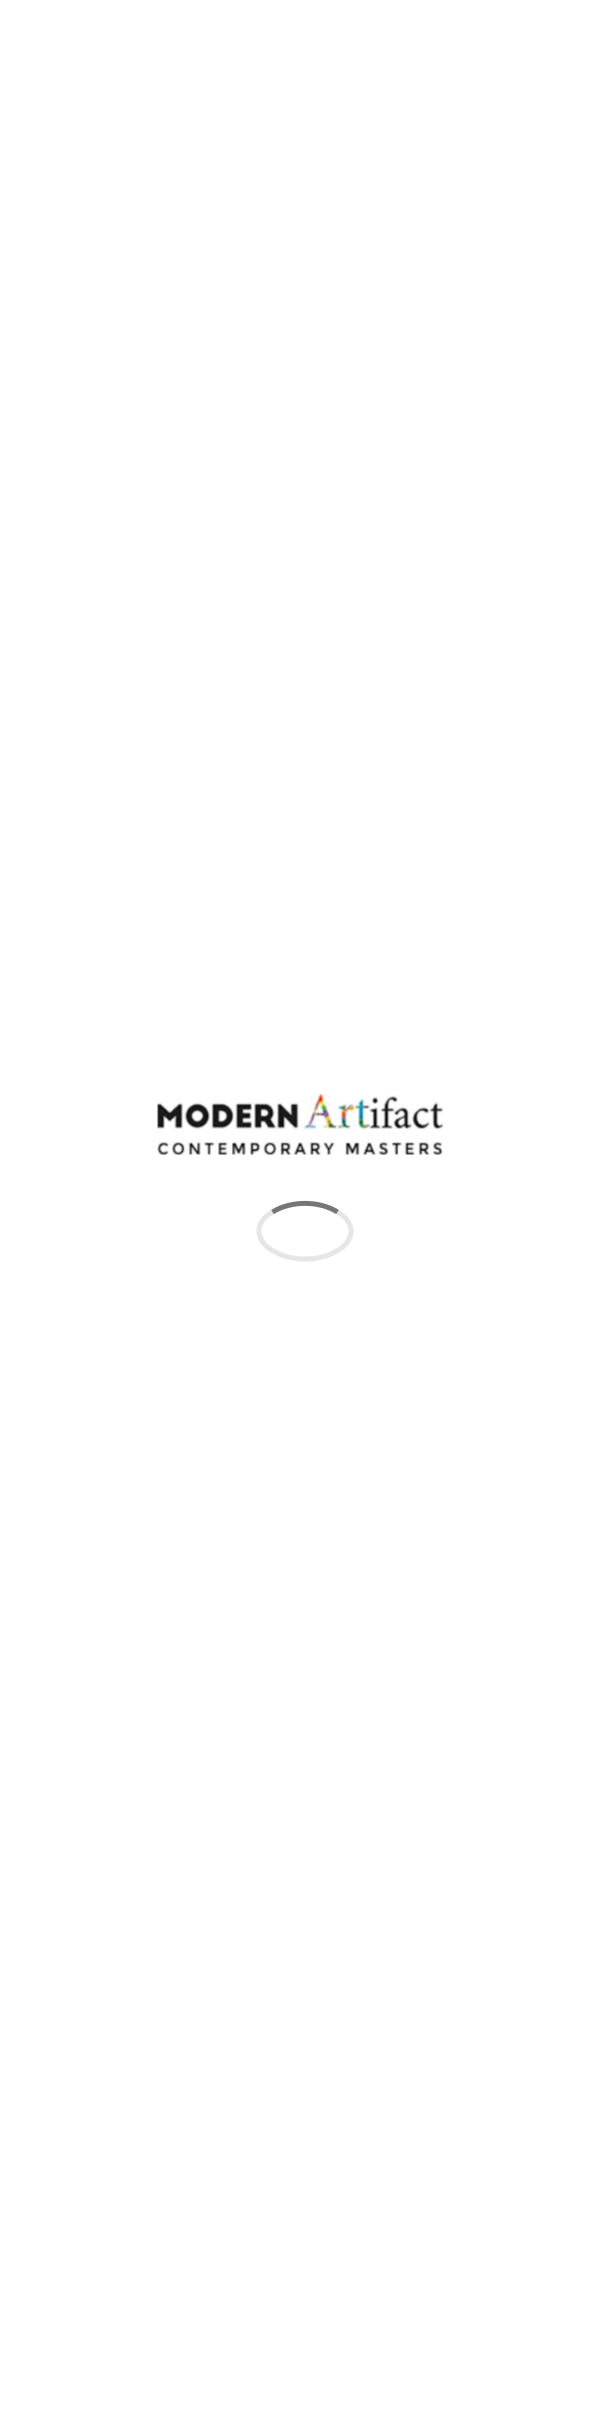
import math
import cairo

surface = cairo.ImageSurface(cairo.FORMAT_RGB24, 600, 2423)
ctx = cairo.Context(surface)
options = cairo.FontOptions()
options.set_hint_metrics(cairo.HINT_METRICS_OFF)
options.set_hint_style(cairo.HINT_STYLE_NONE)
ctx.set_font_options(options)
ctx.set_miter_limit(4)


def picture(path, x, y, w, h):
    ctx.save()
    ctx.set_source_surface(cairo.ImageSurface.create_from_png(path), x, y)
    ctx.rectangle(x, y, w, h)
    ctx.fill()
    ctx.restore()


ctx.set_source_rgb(1, 1, 1)
ctx.paint()
picture("img1.png", 157, 1093, 286, 62)
ctx.new_path()
ctx.move_to(272.5, 1212)
ctx.curve_to(291, 1200.5, 319, 1200.5, 337.5, 1212)
ctx.set_source_rgb(0.463, 0.463, 0.463)
ctx.set_line_width(5)
ctx.stroke()
ctx.new_path()
ctx.move_to(337.5, 1212)
ctx.curve_to(346.5, 1217, 351, 1224, 351, 1231)
ctx.curve_to(351, 1238.5, 346.5, 1245.5, 337.5, 1250.5)
ctx.curve_to(329, 1256, 317.5, 1259, 305, 1259)
ctx.curve_to(292.5, 1259, 281, 1256, 272.5, 1250.5)
ctx.curve_to(263.5, 1245.5, 259, 1238.5, 259, 1231)
ctx.curve_to(259, 1224, 263.5, 1217, 272.5, 1212)
ctx.set_source_rgba(0, 0, 0, 0.1)
ctx.stroke()
surface.write_to_png("page.png")
